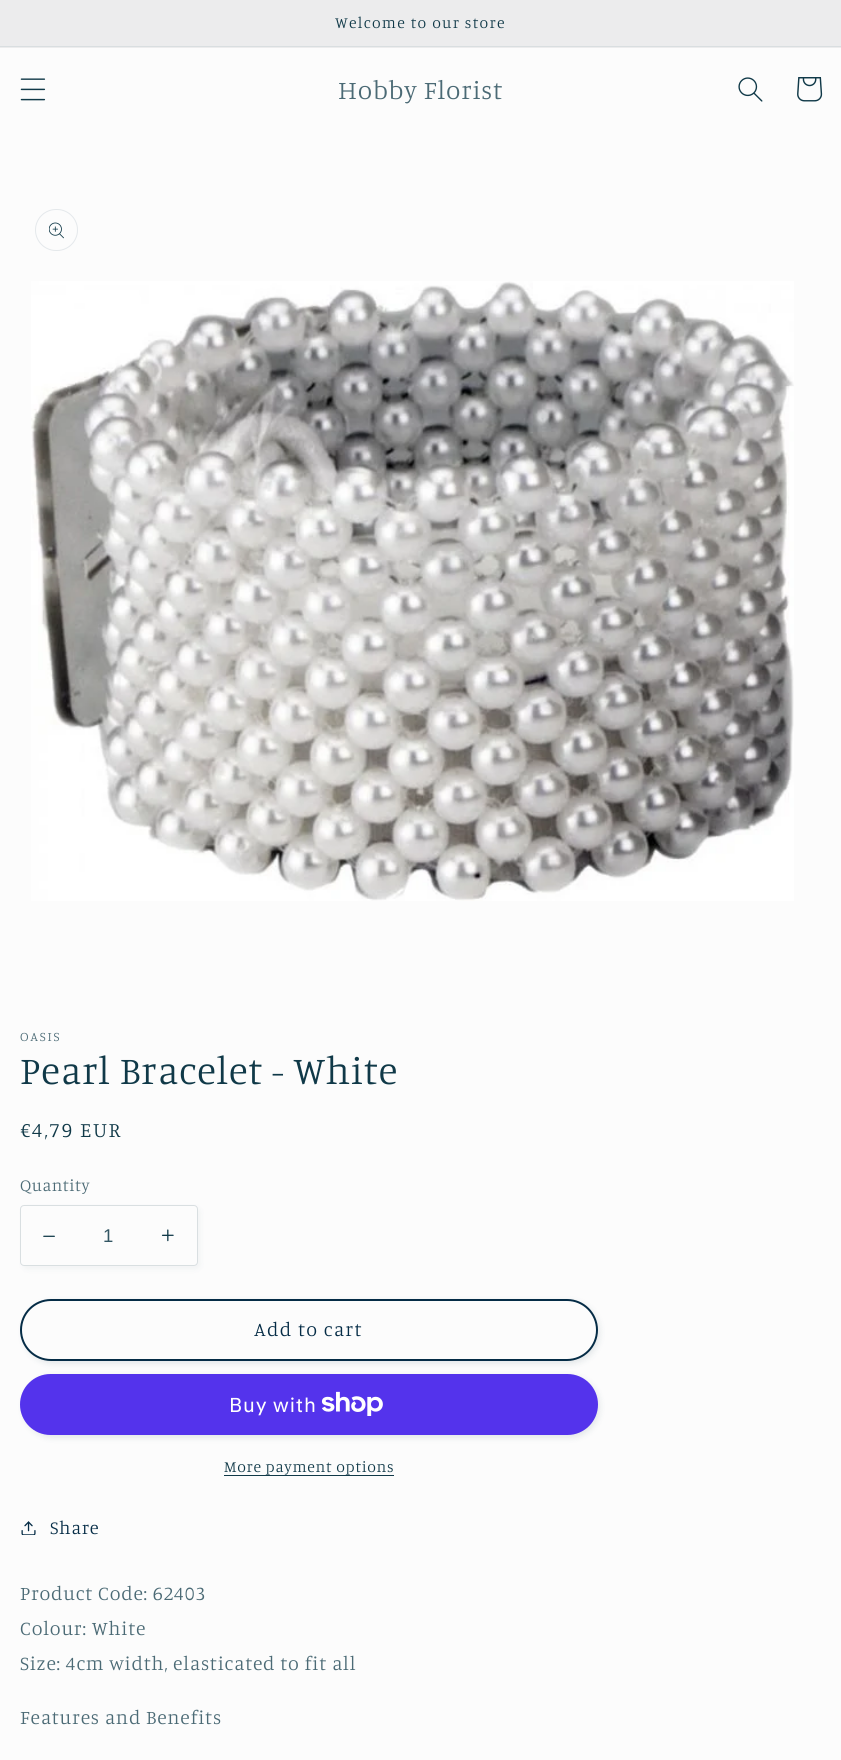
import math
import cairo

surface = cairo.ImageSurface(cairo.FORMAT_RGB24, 841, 1760)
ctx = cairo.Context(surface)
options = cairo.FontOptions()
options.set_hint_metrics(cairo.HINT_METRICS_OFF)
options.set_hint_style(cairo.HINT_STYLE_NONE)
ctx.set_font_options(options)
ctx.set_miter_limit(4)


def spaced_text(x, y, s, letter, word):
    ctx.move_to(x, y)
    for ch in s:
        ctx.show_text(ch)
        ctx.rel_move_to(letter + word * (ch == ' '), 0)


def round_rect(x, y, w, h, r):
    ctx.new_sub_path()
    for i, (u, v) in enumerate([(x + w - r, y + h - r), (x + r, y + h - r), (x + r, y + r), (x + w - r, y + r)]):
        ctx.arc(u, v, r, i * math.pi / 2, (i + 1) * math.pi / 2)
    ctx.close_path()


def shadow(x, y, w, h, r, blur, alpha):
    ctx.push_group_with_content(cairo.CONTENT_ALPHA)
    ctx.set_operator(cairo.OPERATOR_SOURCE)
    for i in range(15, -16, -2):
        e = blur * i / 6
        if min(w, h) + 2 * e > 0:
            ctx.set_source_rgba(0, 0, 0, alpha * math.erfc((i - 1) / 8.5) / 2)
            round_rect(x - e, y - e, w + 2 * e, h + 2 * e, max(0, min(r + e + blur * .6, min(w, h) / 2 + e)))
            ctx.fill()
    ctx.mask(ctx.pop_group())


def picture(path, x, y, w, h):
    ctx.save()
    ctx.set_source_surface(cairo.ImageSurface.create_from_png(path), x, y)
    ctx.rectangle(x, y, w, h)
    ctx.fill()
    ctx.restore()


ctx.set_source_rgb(0.988, 0.988, 0.988)
ctx.paint()
ctx.set_source_rgb(0.922, 0.925, 0.929)
ctx.rectangle(0, 0, 841, 48)
ctx.fill()
ctx.set_source_rgb(0.851, 0.871, 0.878)
ctx.rectangle(0, 46, 841, 1)
ctx.fill()
ctx.select_font_face("Manuale Light")
ctx.set_font_size(15.75)
ctx.set_source_rgb(0.063, 0.224, 0.282)
spaced_text(335, 28, "Welcome to our store", 1.3, 0)
picture("img1.png", 20, 78, 26, 23)
ctx.set_font_size(26.25)
ctx.set_source_rgb(0.294, 0.416, 0.459)
spaced_text(338, 99, "Hobby Florist", 0.8, 0)
picture("img2.png", 738, 77, 25, 25)
picture("img3.png", 797, 77, 26, 25)
round_rect(35.5, 209.5, 42, 41, 20.5)
ctx.set_source_rgb(0.894, 0.91, 0.918)
ctx.set_line_width(1)
ctx.stroke()
picture("img4.png", 49, 222, 15, 17)
picture("img5.png", 31, 281, 763, 620)
ctx.set_font_size(13)
ctx.set_source_rgb(0.294, 0.416, 0.459)
spaced_text(20, 1041, "OASIS", 1.75, 0)
ctx.set_font_size(39.4)
ctx.set_source_rgb(0.063, 0.224, 0.282)
spaced_text(20, 1084, "Pearl Bracelet - White", 0.8, 0)
ctx.set_font_size(21)
spaced_text(20, 1137, "€4,79 EUR", 1.75, 0)
ctx.set_font_size(17)
ctx.set_source_rgb(0.294, 0.416, 0.459)
spaced_text(20, 1191, "Quantity", 0.5, 0)
ctx.set_source_rgb(0.063, 0.224, 0.282)
shadow(23, 1208, 177, 61, 4, 3, 0.05)
ctx.set_source_rgb(0.988, 0.988, 0.988)
round_rect(20, 1205, 178, 61, 4)
ctx.fill()
picture("img6.png", 43, 1235, 12, 2)
picture("img7.png", 161, 1229, 13, 13)
round_rect(20.5, 1205.5, 177, 60, 3.5)
ctx.set_source_rgb(0.851, 0.875, 0.882)
ctx.stroke()
ctx.select_font_face("Liberation Sans")
ctx.set_font_size(18.5)
ctx.set_source_rgb(0.2, 0.337, 0.388)
ctx.move_to(103, 1242)
ctx.show_text("1")
ctx.set_source_rgb(0.063, 0.224, 0.282)
shadow(23, 1301, 577, 63, 31.5, 3, 0.1)
ctx.set_source_rgb(0.988, 0.988, 0.988)
round_rect(20, 1299, 578, 62, 31)
ctx.fill()
round_rect(20.5, 1299.5, 577, 61, 30.5)
ctx.stroke()
round_rect(21, 1300, 576, 60, 30)
ctx.set_source_rgb(0.02, 0.173, 0.275)
ctx.set_line_width(2)
ctx.stroke()
ctx.select_font_face("Manuale Light")
ctx.set_font_size(19.7)
spaced_text(254, 1336, "Add to cart", 1.3, 0)
ctx.set_source_rgb(0.063, 0.224, 0.282)
shadow(23, 1376, 577, 62, 31, 3, 0.1)
ctx.set_source_rgb(0.329, 0.2, 0.922)
round_rect(20, 1374, 578, 61, 30.5)
ctx.fill()
ctx.select_font_face("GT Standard")
ctx.set_font_size(20)
ctx.set_source_rgb(1, 1, 1)
spaced_text(229, 1412, "Buy with", 0.8, 0)
picture("img8.png", 321, 1391, 62, 25)
ctx.select_font_face("Manuale Light")
ctx.set_font_size(15.75)
ctx.set_source_rgb(0.063, 0.224, 0.282)
spaced_text(224, 1472, "More payment options", 0.7, 0)
ctx.rectangle(224, 1475, 170, 1)
ctx.fill()
picture("img9.png", 21, 1521, 15, 14)
ctx.set_font_size(18.5)
ctx.set_source_rgb(0.02, 0.173, 0.275)
spaced_text(50, 1534, "Share", 0.8, 0)
ctx.set_font_size(19.7)
ctx.set_source_rgb(0.294, 0.416, 0.459)
spaced_text(20, 1600, "Product Code: 62403", 0.8, 0)
spaced_text(20, 1635, "Colour: White", 0.8, 0)
spaced_text(20, 1670, "Size: 4cm width, elasticated to fit all", 0.8, 0)
spaced_text(20, 1724, "Features and Benefits", 0.8, 0)
surface.write_to_png("page.png")
